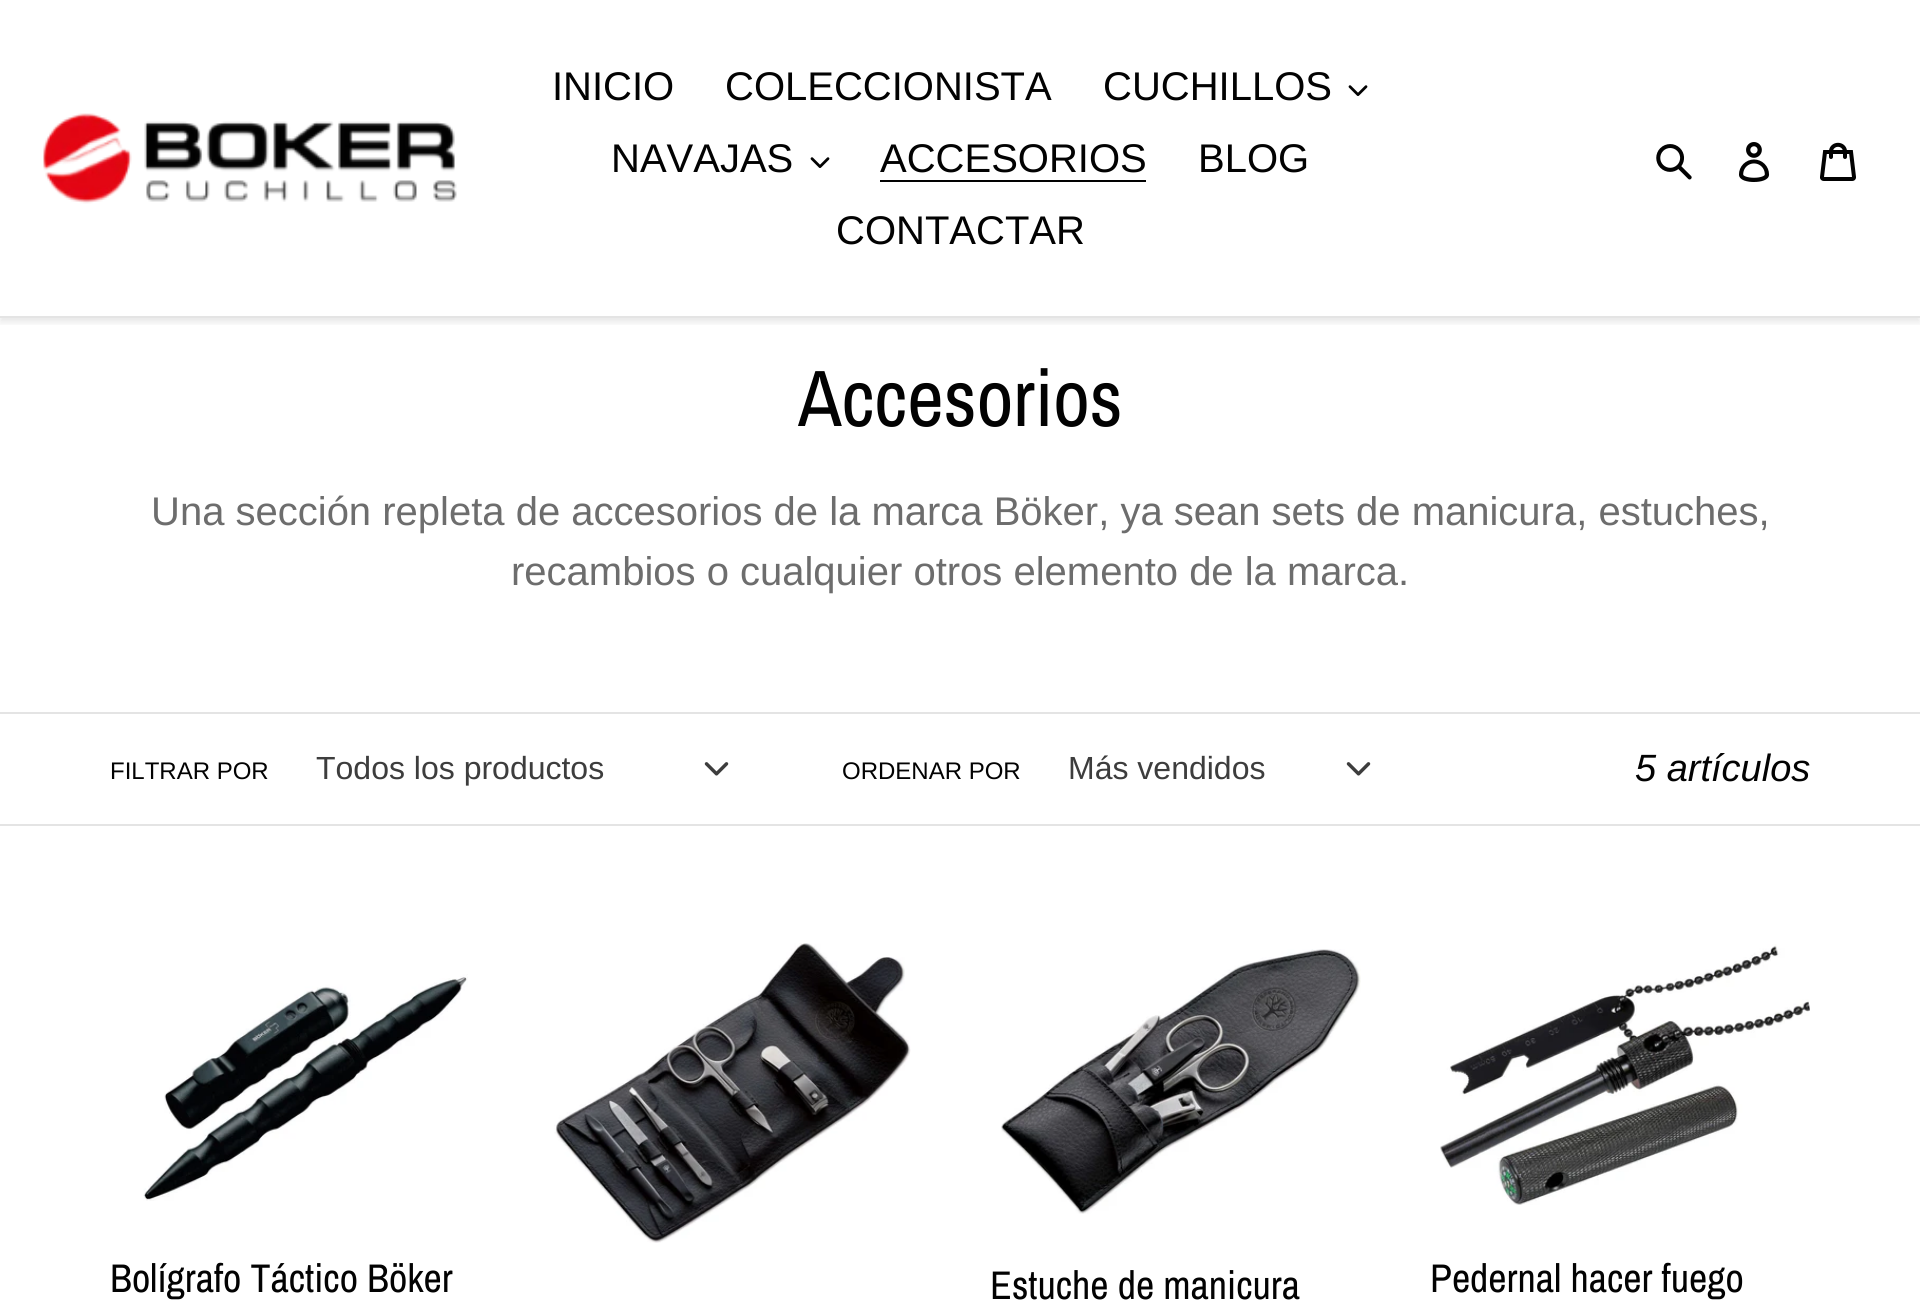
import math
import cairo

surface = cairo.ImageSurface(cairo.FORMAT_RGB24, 1920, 1309)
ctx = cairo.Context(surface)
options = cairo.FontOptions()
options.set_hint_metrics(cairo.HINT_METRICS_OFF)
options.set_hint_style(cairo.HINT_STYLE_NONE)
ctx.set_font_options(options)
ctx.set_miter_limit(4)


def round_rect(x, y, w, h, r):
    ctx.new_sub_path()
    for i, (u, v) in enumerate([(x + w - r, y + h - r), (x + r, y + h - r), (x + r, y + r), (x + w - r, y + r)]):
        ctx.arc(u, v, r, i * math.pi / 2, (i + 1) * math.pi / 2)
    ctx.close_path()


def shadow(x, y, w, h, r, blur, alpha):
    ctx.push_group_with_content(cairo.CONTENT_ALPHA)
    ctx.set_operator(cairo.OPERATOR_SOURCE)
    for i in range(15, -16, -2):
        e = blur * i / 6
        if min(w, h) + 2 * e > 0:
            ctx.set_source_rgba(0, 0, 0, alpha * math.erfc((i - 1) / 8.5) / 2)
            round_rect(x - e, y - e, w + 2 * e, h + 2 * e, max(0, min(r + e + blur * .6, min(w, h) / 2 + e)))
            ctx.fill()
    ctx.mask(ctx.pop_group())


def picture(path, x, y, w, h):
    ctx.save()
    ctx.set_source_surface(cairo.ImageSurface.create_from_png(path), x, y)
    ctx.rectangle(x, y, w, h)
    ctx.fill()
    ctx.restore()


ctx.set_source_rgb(1, 1, 1)
ctx.paint()
ctx.save()
ctx.rectangle(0, 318, 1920, 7)
ctx.clip()
ctx.set_source_rgb(0, 0, 0)
shadow(0, 4, 1920, 318, 0, 4, 0.1)
ctx.restore()
ctx.set_source_rgb(0.894, 0.894, 0.894)
ctx.rectangle(0, 316, 1920, 2)
ctx.fill()
picture("img1.png", 43, 113, 414, 91)
ctx.select_font_face("Arimo")
ctx.set_font_size(40)
ctx.set_source_rgb(0.008, 0.008, 0.008)
ctx.move_to(552, 100)
ctx.show_text("INICIO")
ctx.move_to(725, 100)
ctx.show_text("COLECCIONISTA")
ctx.move_to(1103, 100)
ctx.show_text("CUCHILLOS")
picture("img2.png", 1348, 85, 20, 11)
ctx.move_to(611, 172)
ctx.show_text("NAVAJAS")
picture("img2.png", 810, 157, 20, 11)
ctx.move_to(880, 172)
ctx.show_text("ACCESORIOS")
ctx.rectangle(880, 180, 266, 2)
ctx.fill()
ctx.move_to(1198, 172)
ctx.show_text("BLOG")
ctx.move_to(836, 244)
ctx.show_text("CONTACTAR")
picture("img3.png", 1656, 144, 36, 36)
picture("img4.png", 1739, 142, 31, 40)
picture("img5.png", 1820, 142, 36, 39)
ctx.select_font_face("Archivo Narrow")
ctx.set_font_size(80)
ctx.move_to(798, 426)
ctx.show_text("Accesorios")
ctx.select_font_face("Arimo")
ctx.set_font_size(40)
ctx.set_source_rgb(0.427, 0.427, 0.427)
ctx.move_to(151, 525)
ctx.show_text("Una sección repleta de accesorios de la marca Böker, ya sean sets de manicura, estuches,")
ctx.move_to(511, 585)
ctx.show_text("recambios o cualquier otros elemento de la marca.")
ctx.set_source_rgb(0.894, 0.894, 0.894)
ctx.rectangle(0, 712, 1920, 2)
ctx.fill()
ctx.rectangle(0, 824, 1920, 2)
ctx.fill()
ctx.set_font_size(24)
ctx.set_source_rgb(0.008, 0.008, 0.008)
ctx.move_to(110, 779)
ctx.show_text("FILTRAR POR")
ctx.set_font_size(32)
ctx.set_source_rgb(0.239, 0.239, 0.239)
ctx.move_to(316, 779)
ctx.show_text("Todos los productos")
picture("img6.png", 704, 762, 25, 14)
ctx.set_font_size(24)
ctx.set_source_rgb(0.008, 0.008, 0.008)
ctx.move_to(842, 779)
ctx.show_text("ORDENAR POR")
ctx.set_font_size(32)
ctx.set_source_rgb(0.239, 0.239, 0.239)
ctx.move_to(1068, 779)
ctx.show_text("Más vendidos")
picture("img6.png", 1346, 762, 25, 14)
ctx.select_font_face("Arimo", cairo.FONT_SLANT_ITALIC)
ctx.set_font_size(38)
ctx.set_source_rgb(0.008, 0.008, 0.008)
ctx.move_to(1635, 781)
ctx.show_text("5 artículos")
picture("img7.png", 554, 943, 357, 300)
picture("img8.png", 143, 974, 325, 227)
ctx.select_font_face("Archivo Narrow")
ctx.set_font_size(40)
ctx.move_to(110, 1292)
ctx.show_text("Bolígrafo Táctico Böker")
picture("img9.png", 1001, 949, 360, 265)
ctx.move_to(990, 1299)
ctx.show_text("Estuche de manicura")
picture("img10.png", 1440, 944, 370, 261)
ctx.move_to(1430, 1292)
ctx.show_text("Pedernal hacer fuego")
surface.write_to_png("page.png")
